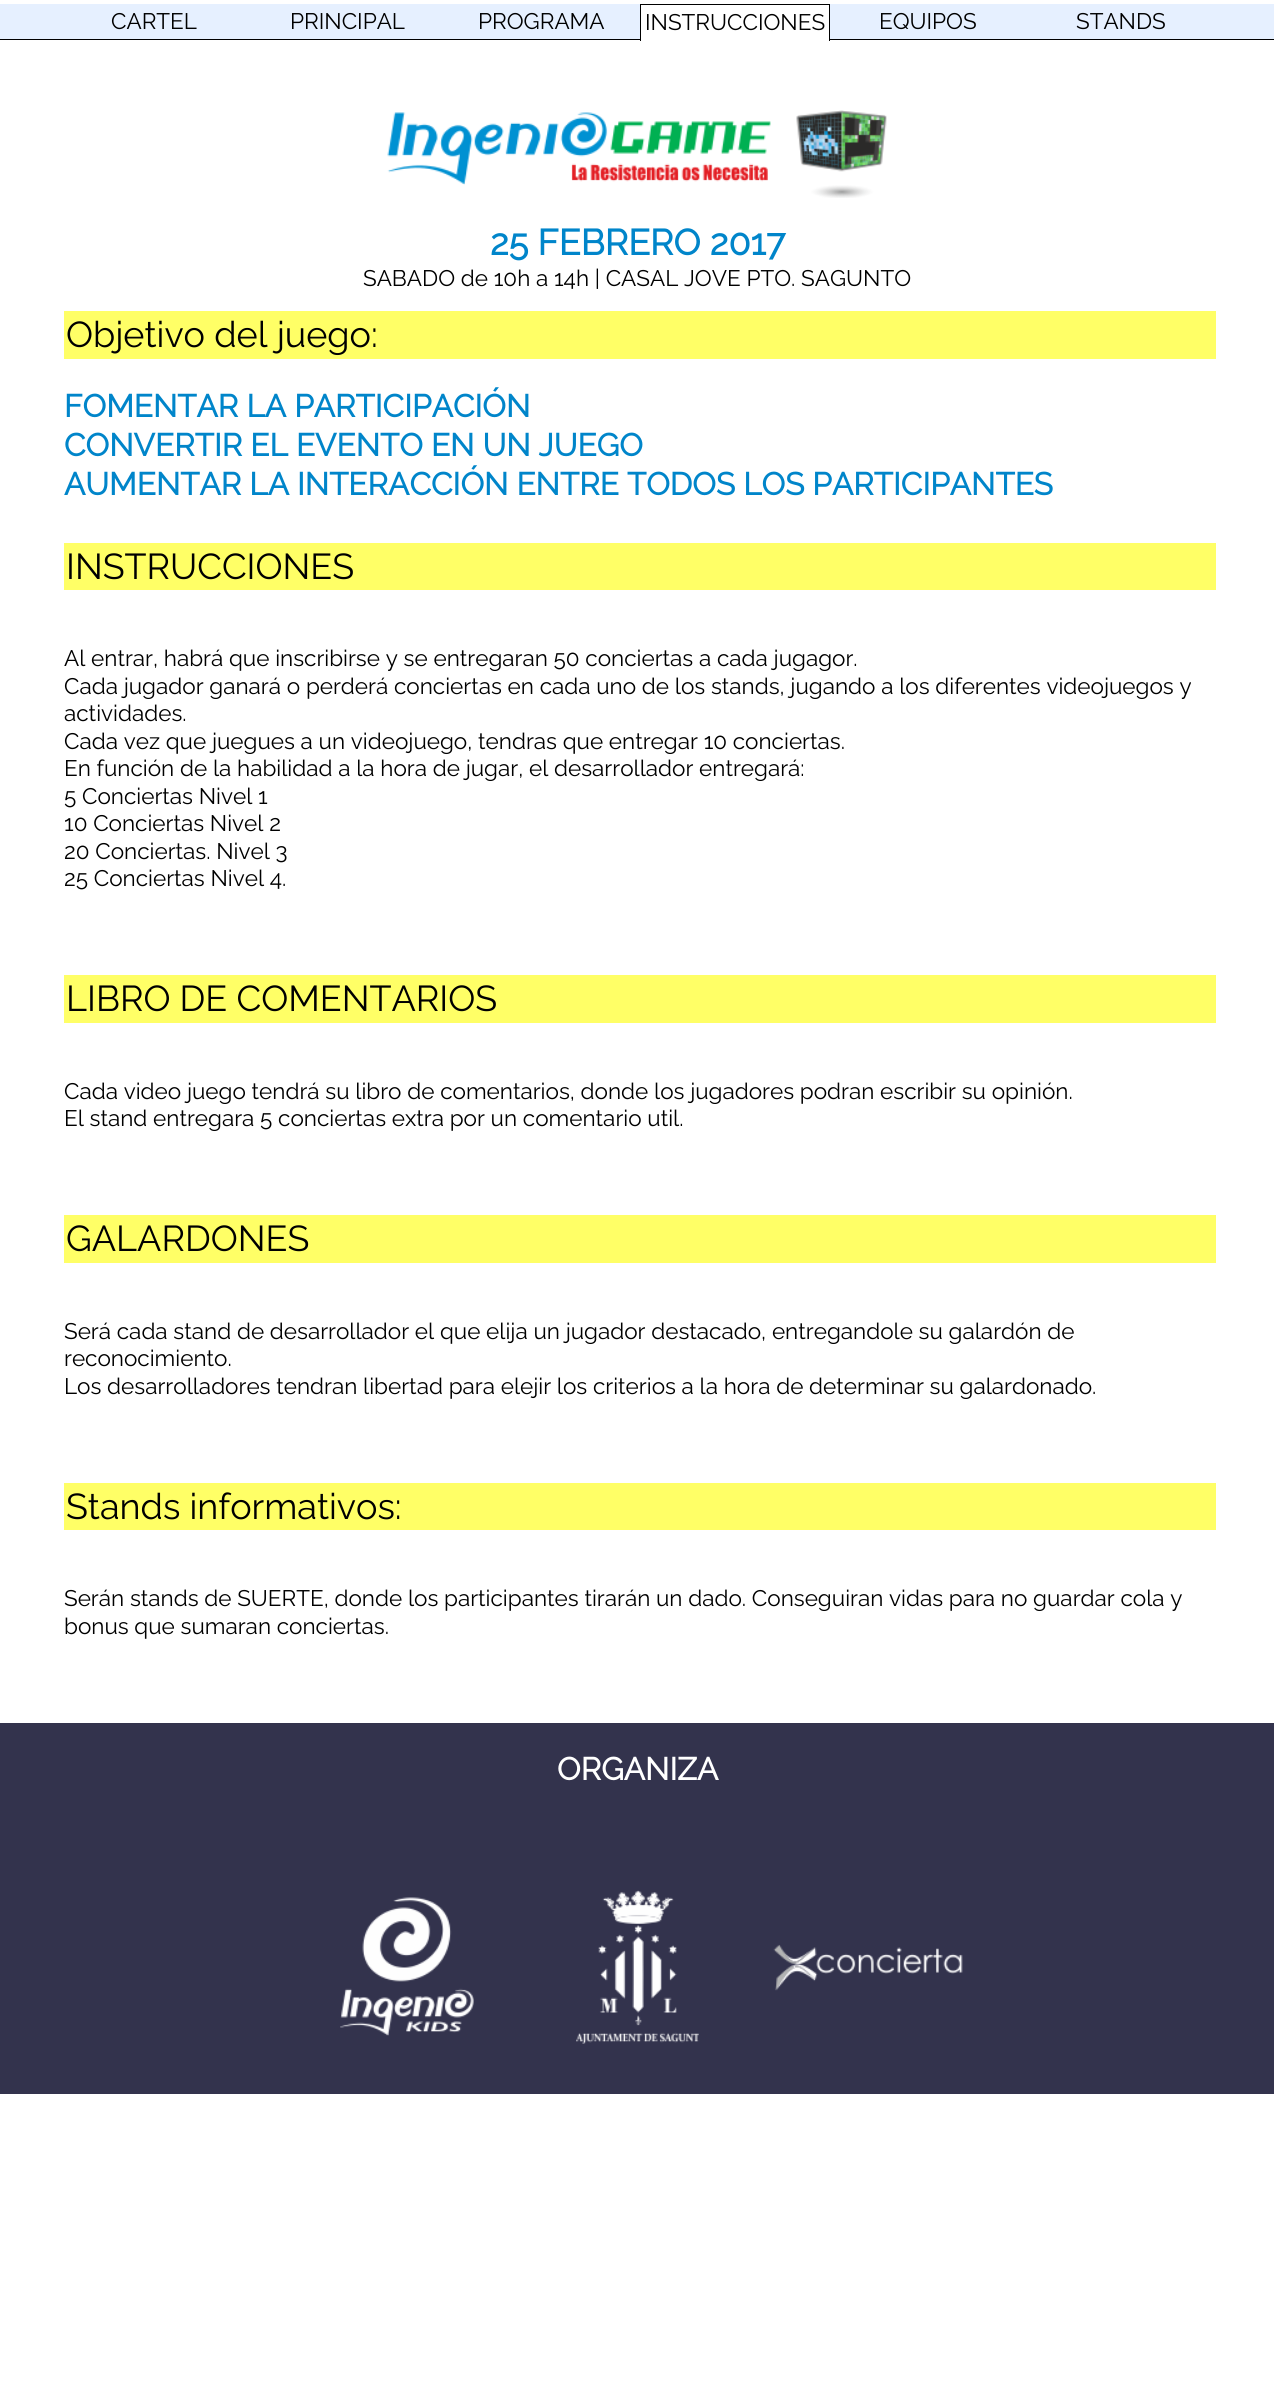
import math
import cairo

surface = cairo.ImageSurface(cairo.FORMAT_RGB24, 1274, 2391)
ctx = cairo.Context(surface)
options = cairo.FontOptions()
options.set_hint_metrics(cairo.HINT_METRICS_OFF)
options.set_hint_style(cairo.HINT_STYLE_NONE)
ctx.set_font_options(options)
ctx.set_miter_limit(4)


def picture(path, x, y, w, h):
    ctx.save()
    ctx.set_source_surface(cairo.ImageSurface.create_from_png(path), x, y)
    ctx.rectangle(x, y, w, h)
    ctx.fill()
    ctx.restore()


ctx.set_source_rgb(1, 1, 1)
ctx.paint()
ctx.set_source_rgb(0.902, 0.941, 1)
ctx.rectangle(0, 4, 1274, 35)
ctx.fill()
ctx.set_source_rgb(0, 0, 0)
ctx.rectangle(0, 39, 1274, 1)
ctx.fill()
ctx.select_font_face("Raleway Thin")
ctx.set_font_size(22.5)
ctx.move_to(111, 29)
ctx.show_text("CARTEL")
ctx.move_to(290, 29)
ctx.show_text("PRINCIPAL")
ctx.move_to(478, 29)
ctx.show_text("PROGRAMA")
ctx.set_source_rgb(1, 1, 1)
ctx.rectangle(641, 5, 188, 35)
ctx.fill()
ctx.set_source_rgb(0, 0, 0)
ctx.rectangle(640, 4, 190, 1)
ctx.fill()
ctx.rectangle(829, 4, 1, 37)
ctx.fill()
ctx.rectangle(640, 4, 1, 37)
ctx.fill()
ctx.move_to(645, 30)
ctx.show_text("INSTRUCCIONES")
ctx.move_to(879, 29)
ctx.show_text("EQUIPOS")
ctx.move_to(1076, 29)
ctx.show_text("STANDS")
picture("img1.png", 387, 110, 500, 88)
ctx.select_font_face("Raleway", cairo.FONT_SLANT_NORMAL, cairo.FONT_WEIGHT_BOLD)
ctx.set_font_size(36)
ctx.set_source_rgb(0, 0.522, 0.792)
ctx.move_to(490, 255)
ctx.show_text("25 FEBRERO 2017")
ctx.select_font_face("Raleway Thin")
ctx.set_font_size(22.5)
ctx.set_source_rgb(0, 0, 0)
ctx.move_to(363, 286)
ctx.show_text("SABADO de 10h a 14h | CASAL JOVE PTO. SAGUNTO")
ctx.set_source_rgb(1, 1, 0.4)
ctx.rectangle(64, 311, 1152, 48)
ctx.fill()
ctx.set_font_size(36)
ctx.set_source_rgb(0, 0, 0)
ctx.move_to(66, 347)
ctx.show_text("Objetivo del juego:")
ctx.select_font_face("Raleway", cairo.FONT_SLANT_NORMAL, cairo.FONT_WEIGHT_BOLD)
ctx.set_font_size(31.5)
ctx.set_source_rgb(0, 0.522, 0.792)
ctx.move_to(64, 417)
ctx.show_text("FOMENTAR LA PARTICIPACIÓN")
ctx.move_to(64, 456)
ctx.show_text("CONVERTIR EL EVENTO EN UN JUEGO")
ctx.move_to(64, 495)
ctx.show_text("AUMENTAR LA INTERACCIÓN ENTRE TODOS LOS PARTICIPANTES")
ctx.set_source_rgb(1, 1, 0.4)
ctx.rectangle(64, 543, 1152, 47)
ctx.fill()
ctx.select_font_face("Raleway Thin")
ctx.set_font_size(36)
ctx.set_source_rgb(0, 0, 0)
ctx.move_to(66, 579)
ctx.show_text("INSTRUCCIONES")
ctx.set_font_size(22.5)
ctx.move_to(64, 666)
ctx.show_text("Al entrar, habrá que inscribirse y se entregaran 50 conciertas a cada jugagor.")
ctx.move_to(64, 694)
ctx.show_text("Cada jugador ganará o perderá conciertas en cada uno de los stands, jugando a los diferentes videojuegos y")
ctx.move_to(64, 721)
ctx.show_text("actividades.")
ctx.move_to(64, 749)
ctx.show_text("Cada vez que juegues a un videojuego, tendras que entregar 10 conciertas.")
ctx.move_to(64, 776)
ctx.show_text("En función de la habilidad a la hora de jugar, el desarrollador entregará:")
ctx.move_to(64, 804)
ctx.show_text("5 Conciertas Nivel 1")
ctx.move_to(64, 831)
ctx.show_text("10 Conciertas Nivel 2")
ctx.move_to(64, 859)
ctx.show_text("20 Conciertas. Nivel 3")
ctx.move_to(64, 886)
ctx.show_text("25 Conciertas Nivel 4.")
ctx.set_source_rgb(1, 1, 0.4)
ctx.rectangle(64, 975, 1152, 48)
ctx.fill()
ctx.set_font_size(36)
ctx.set_source_rgb(0, 0, 0)
ctx.move_to(66, 1011)
ctx.show_text("LIBRO DE COMENTARIOS")
ctx.set_font_size(22.5)
ctx.move_to(64, 1099)
ctx.show_text("Cada video juego tendrá su libro de comentarios, donde los jugadores podran escribir su opinión.")
ctx.move_to(64, 1126)
ctx.show_text("El stand entregara 5 conciertas extra por un comentario util.")
ctx.set_source_rgb(1, 1, 0.4)
ctx.rectangle(64, 1215, 1152, 48)
ctx.fill()
ctx.set_font_size(36)
ctx.set_source_rgb(0, 0, 0)
ctx.move_to(66, 1251)
ctx.show_text("GALARDONES")
ctx.set_font_size(22.5)
ctx.move_to(64, 1339)
ctx.show_text("Será cada stand de desarrollador el que elija un jugador destacado, entregandole su galardón de")
ctx.move_to(64, 1366)
ctx.show_text("reconocimiento.")
ctx.move_to(64, 1394)
ctx.show_text("Los desarrolladores tendran libertad para elejir los criterios a la hora de determinar su galardonado.")
ctx.set_source_rgb(1, 1, 0.4)
ctx.rectangle(64, 1483, 1152, 47)
ctx.fill()
ctx.set_font_size(36)
ctx.set_source_rgb(0, 0, 0)
ctx.move_to(66, 1519)
ctx.show_text("Stands informativos:")
ctx.set_font_size(22.5)
ctx.move_to(64, 1606)
ctx.show_text("Serán stands de SUERTE, donde los participantes tirarán un dado. Conseguiran vidas para no guardar cola y")
ctx.move_to(64, 1634)
ctx.show_text("bonus que sumaran conciertas.")
ctx.set_source_rgb(0.2, 0.2, 0.302)
ctx.rectangle(0, 1723, 1274, 371)
ctx.fill()
ctx.select_font_face("Raleway", cairo.FONT_SLANT_NORMAL, cairo.FONT_WEIGHT_BOLD)
ctx.set_font_size(31.5)
ctx.set_source_rgb(1, 1, 1)
ctx.move_to(557, 1780)
ctx.show_text("ORGANIZA")
picture("img2.png", 340, 1897, 134, 139)
picture("img3.png", 576, 1890, 123, 154)
picture("img4.png", 773, 1944, 190, 47)
surface.write_to_png("page.png")
